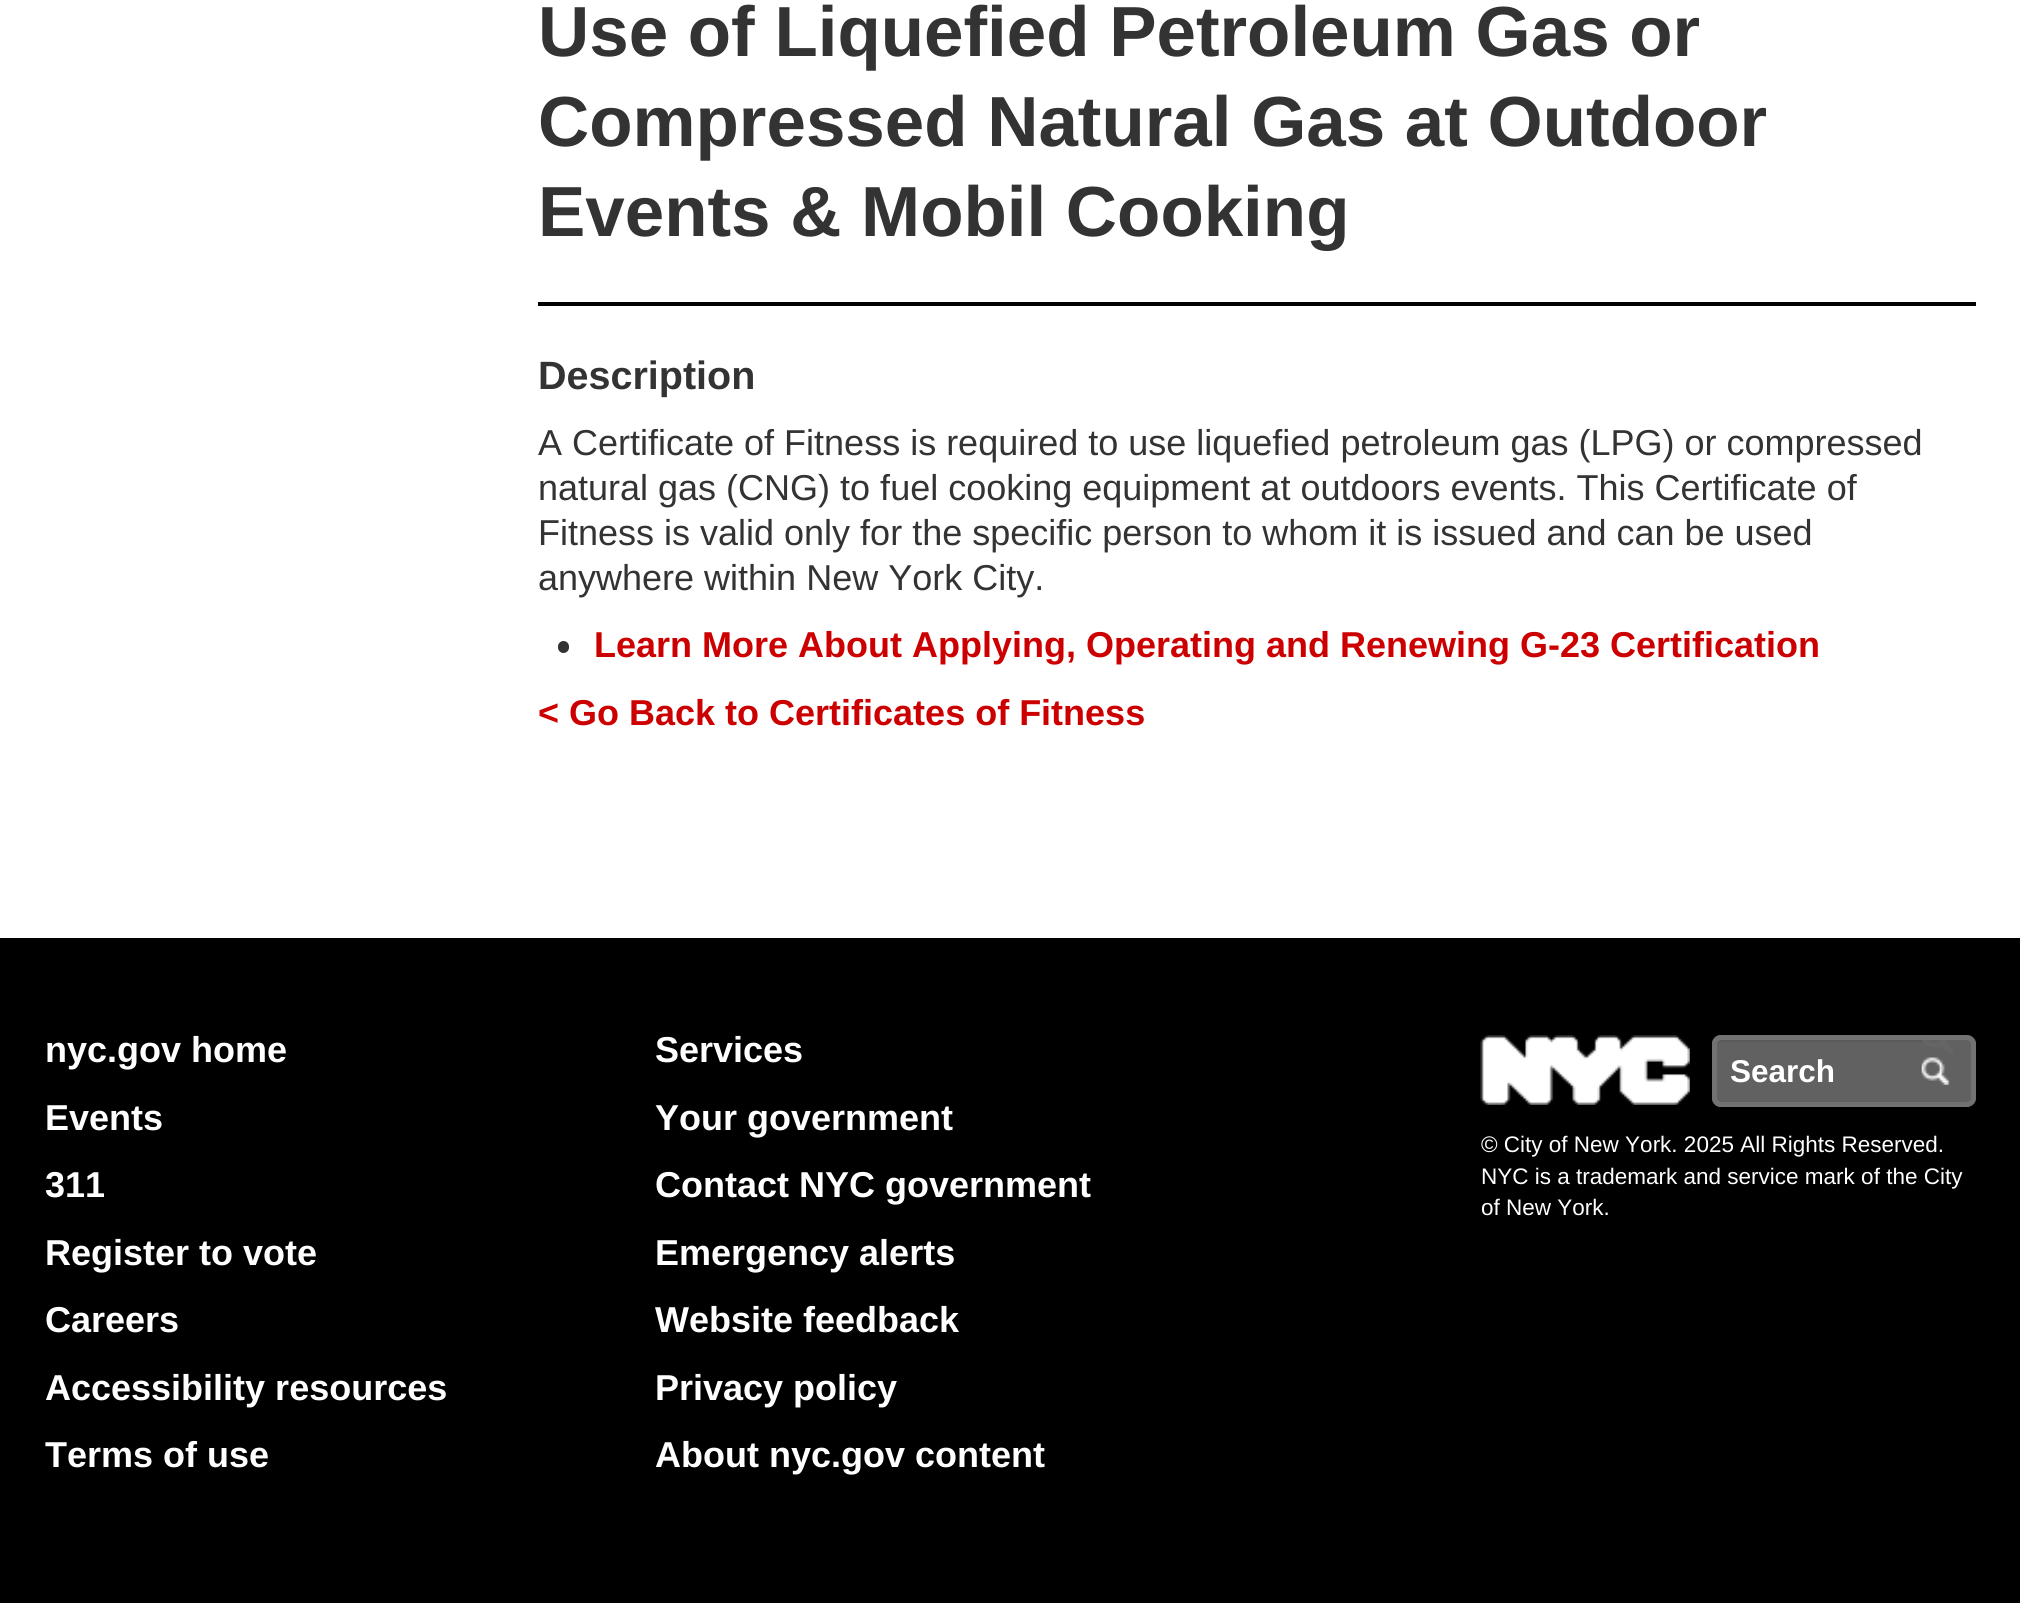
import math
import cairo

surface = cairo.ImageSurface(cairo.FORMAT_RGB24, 2020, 1603)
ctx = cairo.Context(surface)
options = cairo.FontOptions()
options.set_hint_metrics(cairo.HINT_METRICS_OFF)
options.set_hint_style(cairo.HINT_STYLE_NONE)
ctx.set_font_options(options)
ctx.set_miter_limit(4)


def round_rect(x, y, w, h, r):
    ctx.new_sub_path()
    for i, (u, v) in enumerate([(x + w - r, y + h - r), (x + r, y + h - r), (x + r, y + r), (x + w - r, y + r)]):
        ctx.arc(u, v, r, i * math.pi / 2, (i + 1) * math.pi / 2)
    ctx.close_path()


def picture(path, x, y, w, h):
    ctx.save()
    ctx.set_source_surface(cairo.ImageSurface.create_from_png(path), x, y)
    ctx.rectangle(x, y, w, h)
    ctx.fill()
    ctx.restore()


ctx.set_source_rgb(1, 1, 1)
ctx.paint()
ctx.select_font_face("Liberation Sans", cairo.FONT_SLANT_NORMAL, cairo.FONT_WEIGHT_BOLD)
ctx.set_font_size(70.9)
ctx.set_source_rgb(0.2, 0.2, 0.2)
ctx.move_to(538, 56)
ctx.show_text("Use of Liquefied Petroleum Gas or")
ctx.move_to(538, 146)
ctx.show_text("Compressed Natural Gas at Outdoor")
ctx.move_to(538, 236)
ctx.show_text("Events & Mobil Cooking")
ctx.set_source_rgb(0, 0, 0)
ctx.rectangle(538, 302, 1438, 4)
ctx.fill()
ctx.set_font_size(39.5)
ctx.set_source_rgb(0.2, 0.2, 0.2)
ctx.move_to(538, 389)
ctx.show_text("Description")
ctx.select_font_face("Liberation Sans")
ctx.set_font_size(36)
ctx.move_to(538, 455)
ctx.show_text("A Certificate of Fitness is required to use liquefied petroleum gas (LPG) or compressed")
ctx.move_to(538, 500)
ctx.show_text("natural gas (CNG) to fuel cooking equipment at outdoors events. This Certificate of")
ctx.move_to(538, 545)
ctx.show_text("Fitness is valid only for the specific person to whom it is issued and can be used")
ctx.move_to(538, 590)
ctx.show_text("anywhere within New York City.")
round_rect(558, 641, 11, 12, 5.5)
ctx.fill()
ctx.select_font_face("Liberation Sans", cairo.FONT_SLANT_NORMAL, cairo.FONT_WEIGHT_BOLD)
ctx.set_source_rgb(0.8, 0, 0)
ctx.move_to(594, 657)
ctx.show_text("Learn More About Applying, Operating and Renewing G-23 Certification")
ctx.move_to(538, 725)
ctx.show_text("< Go Back to Certificates of Fitness")
ctx.set_source_rgb(0, 0, 0)
ctx.rectangle(0, 938, 2020, 665)
ctx.fill()
ctx.set_source_rgb(1, 1, 1)
ctx.move_to(45, 1062)
ctx.show_text("nyc.gov home")
ctx.move_to(655, 1062)
ctx.show_text("Services")
ctx.move_to(45, 1130)
ctx.show_text("Events")
ctx.move_to(655, 1130)
ctx.show_text("Your government")
ctx.move_to(45, 1197)
ctx.show_text("311")
ctx.move_to(655, 1197)
ctx.show_text("Contact NYC government")
ctx.move_to(45, 1265)
ctx.show_text("Register to vote")
ctx.move_to(655, 1265)
ctx.show_text("Emergency alerts")
ctx.move_to(45, 1332)
ctx.show_text("Careers")
ctx.move_to(655, 1332)
ctx.show_text("Website feedback")
ctx.move_to(45, 1400)
ctx.show_text("Accessibility resources")
ctx.move_to(655, 1400)
ctx.show_text("Privacy policy")
ctx.move_to(45, 1467)
ctx.show_text("Terms of use")
ctx.move_to(655, 1467)
ctx.show_text("About nyc.gov content")
picture("img1.png", 1480, 1035, 210, 70)
ctx.set_source_rgb(0.38, 0.38, 0.38)
ctx.new_path()
ctx.move_to(1721, 1035)
ctx.line_to(1922, 1035)
ctx.line_to(1922, 1107)
ctx.line_to(1721, 1107)
ctx.curve_to(1716, 1107, 1712, 1103, 1712, 1098)
ctx.line_to(1712, 1044)
ctx.curve_to(1712, 1039, 1716, 1035, 1721, 1035)
ctx.close_path()
ctx.fill()
ctx.set_source_rgb(0.353, 0.353, 0.353)
ctx.new_path()
ctx.move_to(1721, 1042)
ctx.line_to(1922, 1042)
ctx.line_to(1922, 1040)
ctx.line_to(1721, 1040)
ctx.curve_to(1718, 1041, 1717, 1043, 1717, 1046)
ctx.curve_to(1717, 1044, 1719, 1042, 1721, 1042)
ctx.close_path()
ctx.fill()
ctx.set_source_rgb(0.447, 0.447, 0.447)
ctx.set_fill_rule(cairo.FILL_RULE_EVEN_ODD)
ctx.new_path()
ctx.move_to(1721, 1035)
ctx.line_to(1922, 1035)
ctx.line_to(1922, 1107)
ctx.line_to(1721, 1107)
ctx.curve_to(1716, 1107, 1712, 1103, 1712, 1098)
ctx.line_to(1712, 1044)
ctx.curve_to(1712, 1039, 1716, 1035, 1721, 1035)
ctx.close_path()
ctx.move_to(1721, 1040)
ctx.line_to(1922, 1040)
ctx.line_to(1922, 1102)
ctx.line_to(1721, 1102)
ctx.curve_to(1719, 1102, 1717, 1100, 1717, 1098)
ctx.line_to(1717, 1044)
ctx.curve_to(1717, 1042, 1719, 1040, 1721, 1040)
ctx.close_path()
ctx.fill()
ctx.set_font_size(31.5)
ctx.set_source_rgb(1, 1, 1)
ctx.move_to(1730, 1082)
ctx.show_text("Search")
ctx.set_source_rgb(0.38, 0.38, 0.38)
ctx.new_path()
ctx.move_to(1922, 1035)
ctx.line_to(1967, 1035)
ctx.curve_to(1972, 1035, 1976, 1039, 1976, 1044)
ctx.line_to(1976, 1098)
ctx.curve_to(1976, 1103, 1972, 1107, 1967, 1107)
ctx.line_to(1922, 1107)
ctx.close_path()
ctx.fill()
picture("img2.png", 1921, 1036, 32, 49)
ctx.set_source_rgb(0.447, 0.447, 0.447)
ctx.new_path()
ctx.move_to(1922, 1035)
ctx.line_to(1966, 1035)
ctx.curve_to(1971, 1035, 1976, 1039, 1976, 1044)
ctx.line_to(1976, 1098)
ctx.curve_to(1976, 1103, 1971, 1107, 1966, 1107)
ctx.line_to(1922, 1107)
ctx.close_path()
ctx.move_to(1922, 1040)
ctx.line_to(1966, 1040)
ctx.curve_to(1969, 1040, 1971, 1042, 1971, 1044)
ctx.line_to(1971, 1098)
ctx.curve_to(1971, 1100, 1969, 1102, 1966, 1102)
ctx.line_to(1922, 1102)
ctx.close_path()
ctx.fill()
ctx.select_font_face("Liberation Sans")
ctx.set_font_size(22.5)
ctx.set_source_rgb(1, 1, 1)
ctx.move_to(1481, 1152)
ctx.show_text("© City of New York. 2025 All Rights Reserved.")
ctx.move_to(1481, 1184)
ctx.show_text("NYC is a trademark and service mark of the City")
ctx.move_to(1481, 1215)
ctx.show_text("of New York.")
surface.write_to_png("page.png")
